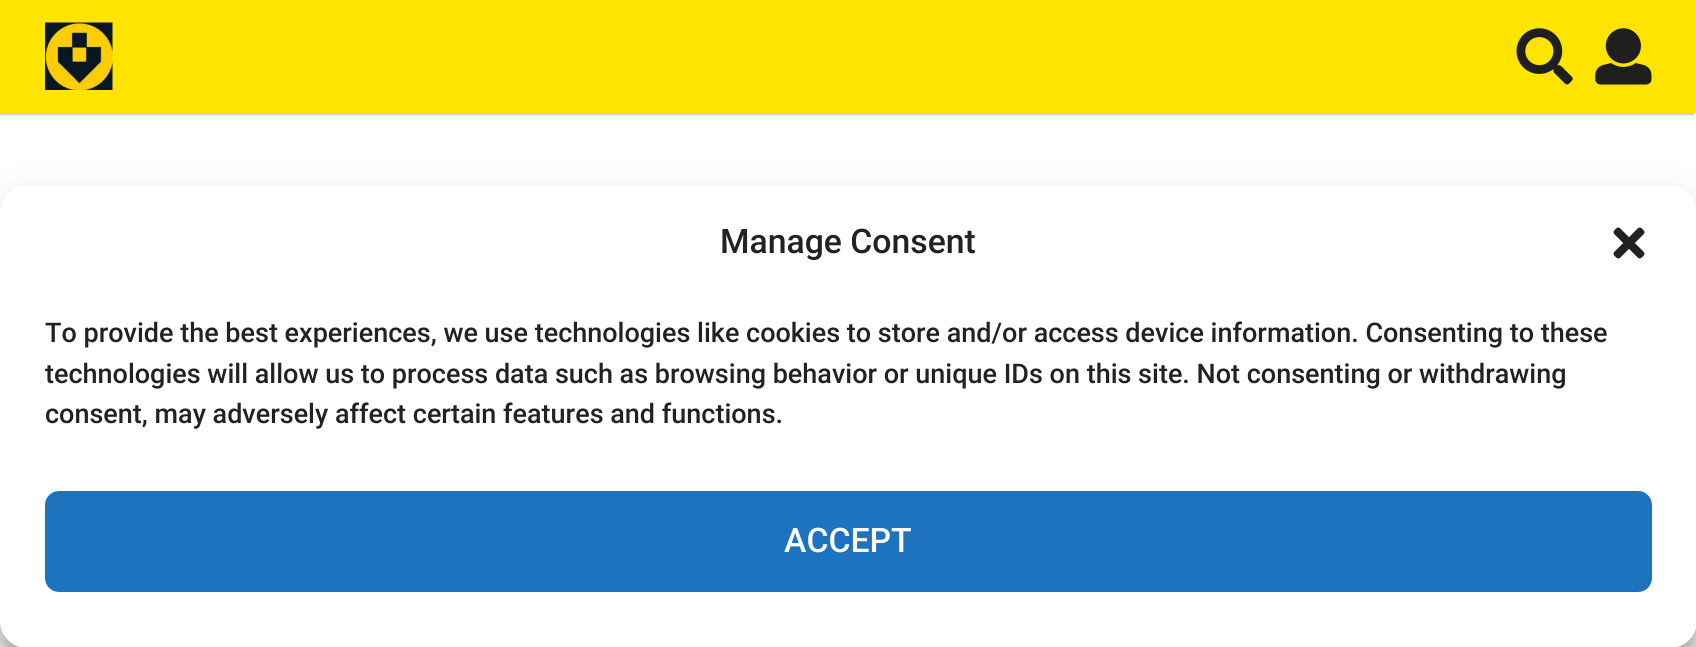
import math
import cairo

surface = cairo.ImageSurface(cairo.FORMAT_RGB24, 1696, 647)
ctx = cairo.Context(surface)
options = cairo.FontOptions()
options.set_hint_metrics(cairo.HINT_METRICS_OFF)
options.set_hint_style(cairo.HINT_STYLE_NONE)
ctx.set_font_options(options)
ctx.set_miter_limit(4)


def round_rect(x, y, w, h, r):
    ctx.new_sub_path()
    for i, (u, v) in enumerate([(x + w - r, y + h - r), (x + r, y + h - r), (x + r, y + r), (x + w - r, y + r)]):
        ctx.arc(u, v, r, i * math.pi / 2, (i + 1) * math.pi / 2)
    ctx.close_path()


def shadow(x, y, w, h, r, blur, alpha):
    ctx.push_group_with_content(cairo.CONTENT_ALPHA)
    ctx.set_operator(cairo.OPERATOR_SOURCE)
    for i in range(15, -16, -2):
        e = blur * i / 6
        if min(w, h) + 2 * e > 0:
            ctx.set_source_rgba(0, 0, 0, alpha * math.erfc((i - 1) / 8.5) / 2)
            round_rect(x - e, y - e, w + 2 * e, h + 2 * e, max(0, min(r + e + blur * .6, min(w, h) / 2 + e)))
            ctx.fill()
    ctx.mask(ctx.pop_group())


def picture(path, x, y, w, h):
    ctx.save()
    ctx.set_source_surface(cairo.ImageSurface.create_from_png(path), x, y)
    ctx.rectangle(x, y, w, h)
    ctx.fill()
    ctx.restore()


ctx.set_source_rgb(1, 1, 1)
ctx.paint()
ctx.set_source_rgb(0.165, 0.165, 0.165)
shadow(-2, 2, 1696, 113, 0, 1, 0.27)
ctx.set_source_rgb(1, 0.894, 0)
ctx.rectangle(0, 0, 1696, 113)
ctx.fill()
picture("img1.png", 45, 22, 68, 68)
picture("img2.png", 1516, 28, 57, 57)
picture("img3.png", 1595, 28, 57, 57)
ctx.set_source_rgb(0, 0, 0)
shadow(0, 198, 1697, 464, 27, 7, 0.23)
shadow(0, 207, 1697, 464, 27, 22.5, 0.19)
ctx.set_source_rgb(1, 1, 1)
round_rect(0, 185, 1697, 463, 27)
ctx.fill()
ctx.select_font_face("Roboto Medium")
ctx.set_font_size(33.75)
ctx.set_source_rgb(0.133, 0.133, 0.133)
ctx.move_to(720, 253)
ctx.show_text("Manage Consent")
picture("img4.png", 1613, 227, 32, 32)
ctx.set_font_size(27)
ctx.move_to(45, 342)
ctx.show_text("To provide the best experiences, we use technologies like cookies to store and/or access device information. Consenting to these")
ctx.move_to(45, 383)
ctx.show_text("technologies will allow us to process data such as browsing behavior or unique IDs on this site. Not consenting or withdrawing")
ctx.move_to(45, 423)
ctx.show_text("consent, may adversely affect certain features and functions.")
ctx.set_source_rgb(0.118, 0.451, 0.745)
round_rect(46, 492, 1605, 99, 13)
ctx.fill_preserve()
ctx.stroke()
ctx.set_font_size(33.75)
ctx.set_source_rgb(1, 1, 1)
ctx.move_to(784, 552)
ctx.show_text("ACCEPT")
surface.write_to_png("page.png")
